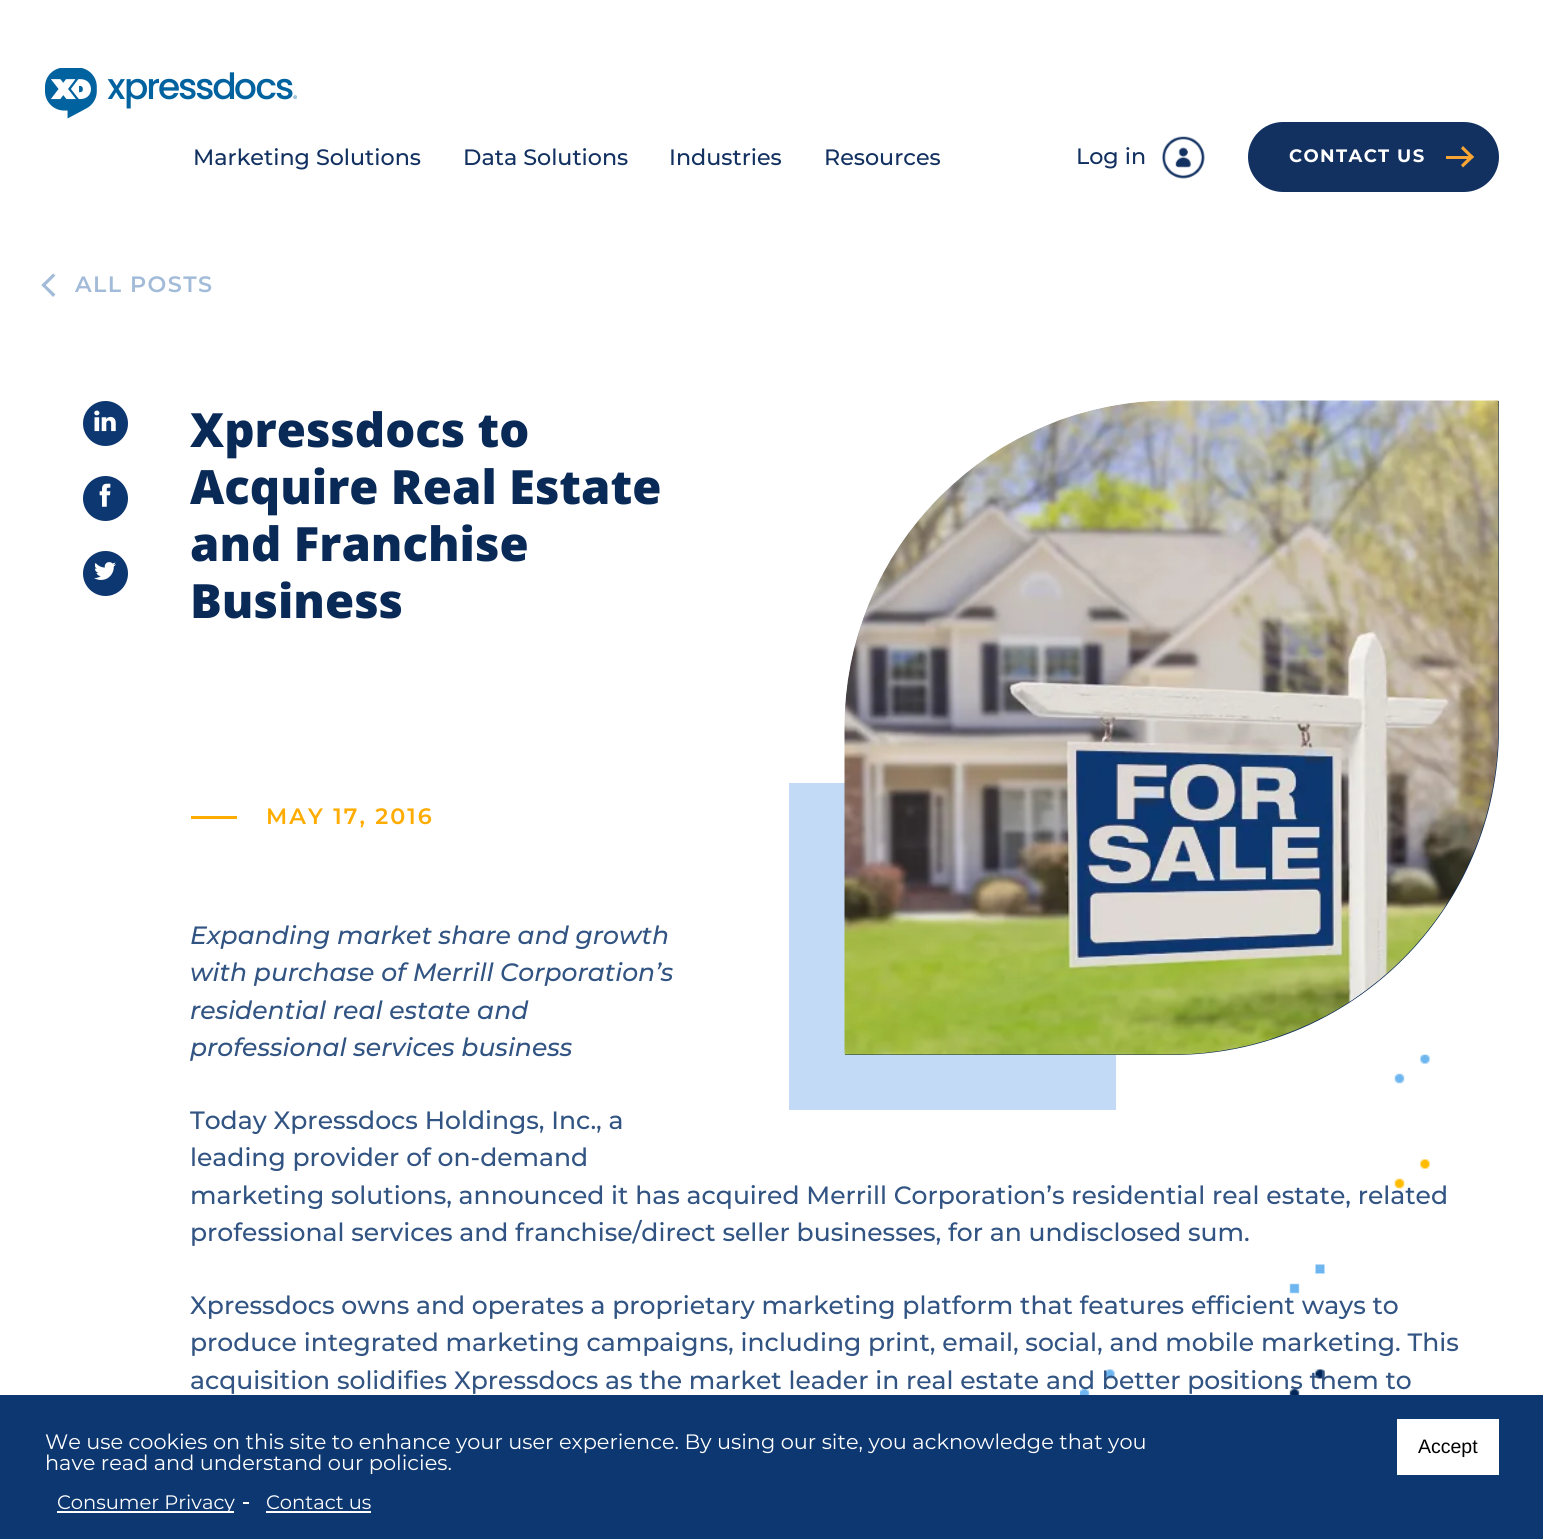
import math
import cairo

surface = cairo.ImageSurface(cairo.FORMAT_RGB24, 1543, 1539)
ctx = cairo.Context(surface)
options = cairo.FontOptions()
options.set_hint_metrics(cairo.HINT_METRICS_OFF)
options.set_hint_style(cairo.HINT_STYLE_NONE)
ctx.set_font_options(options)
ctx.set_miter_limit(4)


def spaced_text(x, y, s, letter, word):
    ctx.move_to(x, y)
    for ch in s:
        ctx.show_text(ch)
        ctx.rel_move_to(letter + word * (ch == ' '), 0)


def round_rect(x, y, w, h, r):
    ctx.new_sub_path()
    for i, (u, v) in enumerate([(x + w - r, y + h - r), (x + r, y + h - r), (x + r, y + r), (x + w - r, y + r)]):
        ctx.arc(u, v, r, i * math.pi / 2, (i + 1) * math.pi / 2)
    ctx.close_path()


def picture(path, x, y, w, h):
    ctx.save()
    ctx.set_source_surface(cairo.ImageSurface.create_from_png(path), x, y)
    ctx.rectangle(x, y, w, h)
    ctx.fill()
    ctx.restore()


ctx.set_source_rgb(1, 1, 1)
ctx.paint()
picture("img1.png", 45, 68, 252, 51)
ctx.select_font_face("Montserrat Medium")
ctx.set_font_size(22.25)
ctx.set_source_rgb(0.071, 0.192, 0.38)
ctx.move_to(193, 165)
ctx.show_text("Marketing Solutions")
ctx.move_to(463, 165)
ctx.show_text("Data Solutions")
ctx.move_to(669, 165)
ctx.show_text("Industries")
ctx.move_to(824, 165)
ctx.show_text("Resources")
ctx.move_to(1076, 164)
ctx.show_text("Log in")
picture("img2.png", 1161, 136, 44, 43)
round_rect(1248, 122, 251, 70, 35)
ctx.fill()
ctx.select_font_face("Montserrat", cairo.FONT_SLANT_NORMAL, cairo.FONT_WEIGHT_BOLD)
ctx.set_font_size(18)
ctx.set_source_rgb(1, 1, 1)
spaced_text(1289, 162, "CONTACT US", 1.4, 0)
ctx.set_source_rgb(0.969, 0.647, 0.2)
ctx.rectangle(1446, 156, 24, 3)
ctx.fill()
ctx.new_path()
ctx.move_to(1461, 148.5)
ctx.line_to(1463, 146)
ctx.line_to(1474, 157)
ctx.line_to(1471.5, 159)
ctx.close_path()
ctx.fill()
ctx.new_path()
ctx.move_to(1461, 165)
ctx.line_to(1471.5, 154.5)
ctx.line_to(1474, 157)
ctx.line_to(1463, 167.5)
ctx.close_path()
ctx.fill()
ctx.set_source_rgb(0.635, 0.733, 0.847)
ctx.new_path()
ctx.move_to(41.5, 285)
ctx.line_to(53, 273.5)
ctx.line_to(55.5, 275.5)
ctx.line_to(43.5, 287.5)
ctx.close_path()
ctx.fill()
ctx.new_path()
ctx.move_to(41.5, 285)
ctx.line_to(43.5, 283)
ctx.line_to(55.5, 294.5)
ctx.line_to(53, 297)
ctx.close_path()
ctx.fill()
ctx.select_font_face("Montserrat SemiBold")
ctx.set_font_size(22.25)
spaced_text(75, 292, "ALL POSTS", 1.4, 0)
ctx.set_source_rgb(0.051, 0.216, 0.439)
ctx.new_path()
ctx.arc(105.5, 423.5, 22.5, 0, 2 * math.pi)
ctx.fill()
picture("img3.png", 94, 410, 22, 22)
ctx.arc(105.5, 498.5, 22.5, 0, 2 * math.pi)
ctx.fill()
picture("img4.png", 99, 483, 12, 24)
ctx.arc(105.5, 573.5, 22.5, 0, 2 * math.pi)
ctx.fill()
picture("img5.png", 94, 562, 22, 18)
ctx.select_font_face("Open Sans ExtraBold")
ctx.set_font_size(47.25)
ctx.set_source_rgb(0.039, 0.165, 0.341)
ctx.move_to(190, 447)
ctx.show_text("Xpressdocs to")
ctx.move_to(190, 504)
ctx.show_text("Acquire Real Estate")
ctx.move_to(190, 561)
ctx.show_text("and Franchise")
ctx.move_to(190, 618)
ctx.show_text("Business")
picture("img8.png", 1080, 1073, 325, 322)
ctx.set_source_rgb(0.761, 0.855, 0.961)
ctx.rectangle(789, 783, 327, 327)
ctx.fill()
ctx.set_source_rgb(0.039, 0.165, 0.341)
ctx.new_path()
ctx.move_to(1172, 401)
ctx.line_to(1499, 401)
ctx.line_to(1499, 728)
ctx.curve_to(1499, 908.5, 1352.5, 1055, 1172, 1055)
ctx.line_to(845, 1055)
ctx.line_to(845, 728)
ctx.curve_to(845, 547.5, 991.5, 401, 1172, 401)
ctx.close_path()
ctx.fill()
picture("img6.png", 844, 400, 655, 655)
ctx.set_source_rgb(1, 0.675, 0)
ctx.rectangle(191, 816, 46, 3)
ctx.fill()
ctx.select_font_face("Montserrat SemiBold")
ctx.set_font_size(22.25)
spaced_text(266, 824, "MAY 17, 2016", 2.1, 0)
ctx.select_font_face("Montserrat Medium", cairo.FONT_SLANT_ITALIC)
ctx.set_font_size(25.05)
ctx.set_source_rgb(0.196, 0.329, 0.514)
ctx.move_to(190, 944)
ctx.show_text("Expanding market share and growth")
ctx.move_to(190, 981)
ctx.show_text("with purchase of Merrill Corporation’s")
ctx.move_to(190, 1019)
ctx.show_text("residential real estate and")
ctx.move_to(190, 1056)
ctx.show_text("professional services business")
ctx.select_font_face("Montserrat Medium")
ctx.move_to(190, 1129)
ctx.show_text("Today Xpressdocs Holdings, Inc., a")
ctx.move_to(190, 1166)
ctx.show_text("leading provider of on-demand")
picture("img7.png", 1105, 1054, 325, 325)
ctx.move_to(190, 1204)
ctx.show_text("marketing solutions, announced it has acquired Merrill Corporation’s residential real estate, related")
ctx.move_to(190, 1241)
ctx.show_text("professional services and franchise/direct seller businesses, for an undisclosed sum.")
ctx.move_to(190, 1314)
ctx.show_text("Xpressdocs owns and operates a proprietary marketing platform that features efficient ways to")
ctx.move_to(190, 1351)
ctx.show_text("produce integrated marketing campaigns, including print, email, social, and mobile marketing. This")
ctx.move_to(190, 1389)
ctx.show_text("acquisition solidifies Xpressdocs as the market leader in real estate and better positions them to")
ctx.set_source_rgb(0.051, 0.216, 0.439)
ctx.rectangle(0, 1395, 1543, 144)
ctx.fill()
ctx.select_font_face("Montserrat")
ctx.set_font_size(20.88)
ctx.set_source_rgb(1, 1, 1)
ctx.move_to(45, 1449)
ctx.show_text("We use cookies on this site to enhance your user experience. By using our site, you acknowledge that you")
ctx.move_to(45, 1470)
ctx.show_text("have read and understand our policies.")
ctx.rectangle(57, 1511, 177, 2)
ctx.fill()
ctx.set_font_size(19.5)
ctx.move_to(57, 1509)
ctx.show_text("Consumer Privacy")
ctx.rectangle(243, 1502, 6, 2)
ctx.fill()
ctx.move_to(266, 1509)
ctx.show_text("Contact us")
ctx.rectangle(266, 1511, 105, 2)
ctx.fill()
ctx.rectangle(1397, 1419, 102, 56)
ctx.fill()
ctx.select_font_face("Liberation Sans")
ctx.set_source_rgb(0, 0, 0)
ctx.move_to(1418, 1453)
ctx.show_text("Accept")
surface.write_to_png("page.png")
